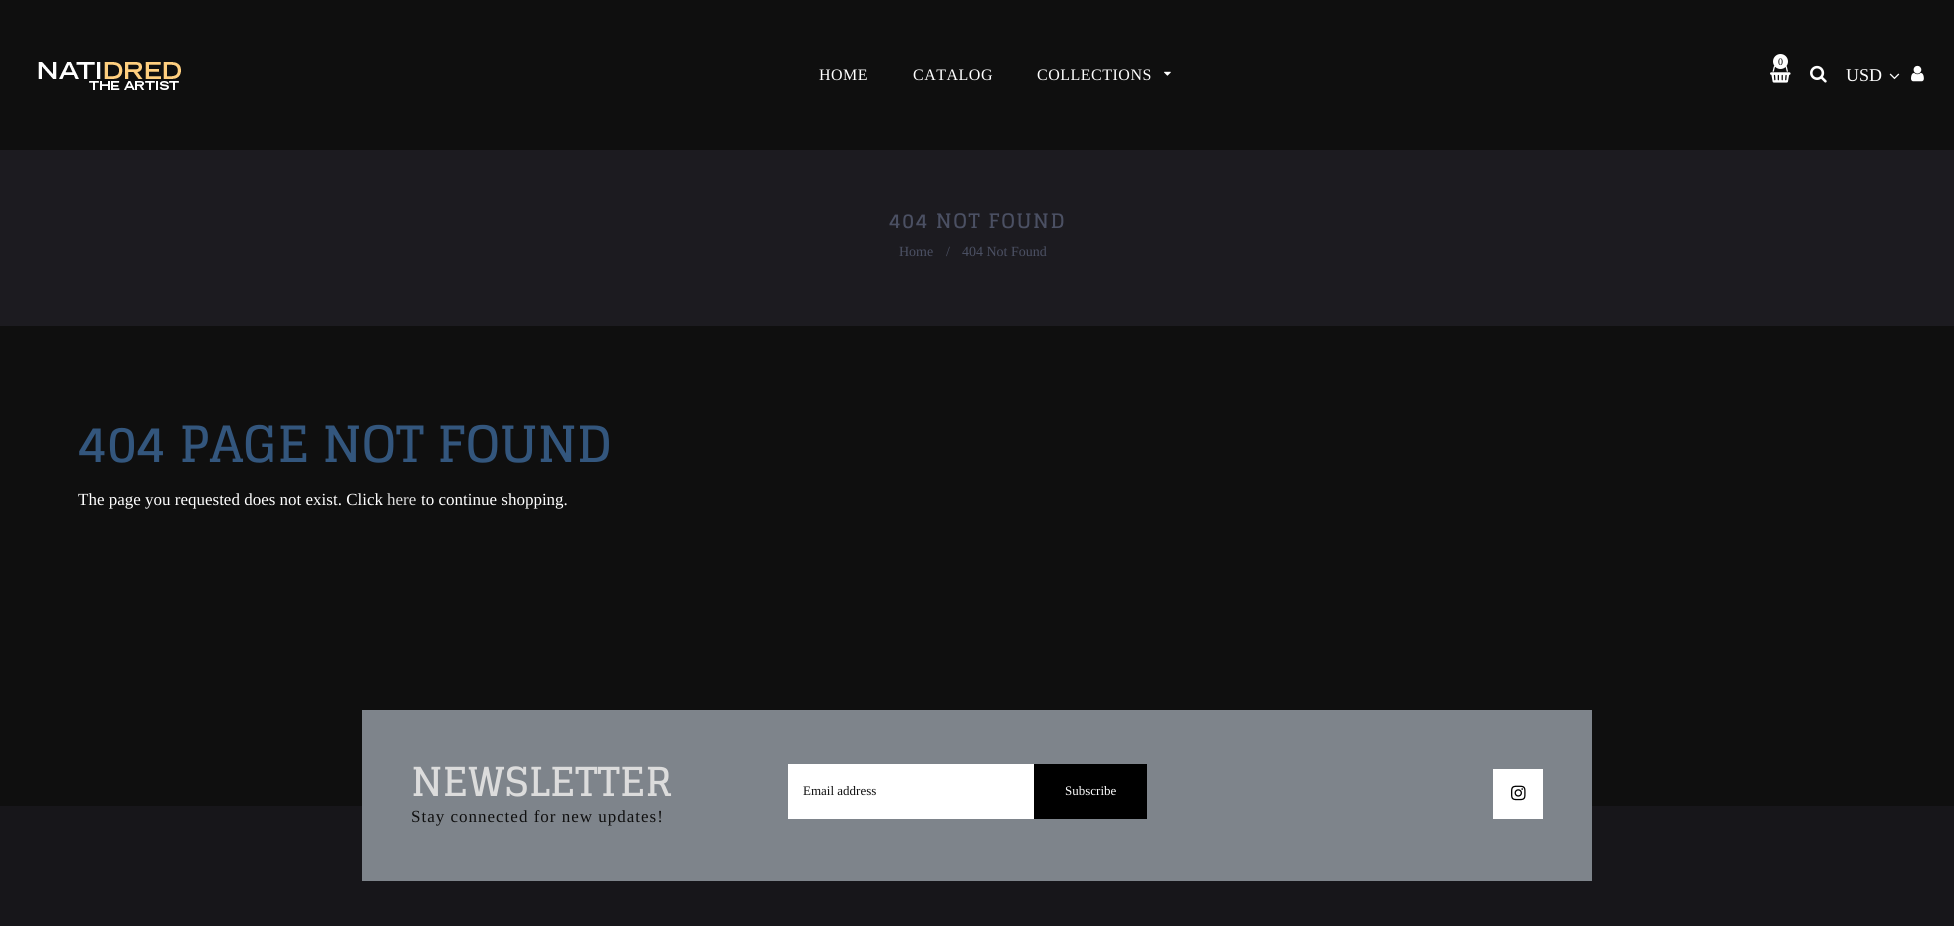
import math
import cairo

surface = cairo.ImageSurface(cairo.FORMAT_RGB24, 1954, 926)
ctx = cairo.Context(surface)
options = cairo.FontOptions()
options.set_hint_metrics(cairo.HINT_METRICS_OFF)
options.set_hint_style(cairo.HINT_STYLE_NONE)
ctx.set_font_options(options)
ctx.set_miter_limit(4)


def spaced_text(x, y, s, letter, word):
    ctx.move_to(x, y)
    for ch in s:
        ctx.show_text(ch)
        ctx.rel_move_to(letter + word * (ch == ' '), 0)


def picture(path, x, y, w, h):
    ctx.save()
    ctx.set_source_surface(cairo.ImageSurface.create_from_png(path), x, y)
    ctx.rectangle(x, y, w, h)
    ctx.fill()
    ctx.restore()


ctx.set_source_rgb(0.059, 0.059, 0.059)
ctx.paint()
picture("img1.png", 38, 62, 143, 28)
ctx.select_font_face("Liberation Serif")
ctx.set_font_size(16)
ctx.set_source_rgb(1, 1, 1)
spaced_text(819, 80, "HOME", 0.5, 0)
spaced_text(913, 80, "CATALOG", 0.5, 0)
spaced_text(1037, 80, "COLLECTIONS", 0.5, 0)
picture("img2.png", 1164, 71, 7, 5)
picture("img3.png", 1770, 65, 21, 18)
ctx.arc(1780.5, 61.5, 7.5, 0, 2 * math.pi)
ctx.fill()
ctx.set_font_size(10)
ctx.set_source_rgb(0, 0, 0)
ctx.move_to(1778, 65)
ctx.show_text("0")
picture("img4.png", 1810, 65, 17, 18)
ctx.set_font_size(18)
ctx.set_source_rgb(1, 1, 1)
ctx.move_to(1846, 81)
ctx.show_text("USD")
picture("img5.png", 1889, 73, 11, 7)
picture("img6.png", 1911, 65, 13, 17)
ctx.set_source_rgb(0.11, 0.106, 0.125)
ctx.rectangle(0, 150, 1954, 176)
ctx.fill()
ctx.select_font_face("Glegoo", cairo.FONT_SLANT_NORMAL, cairo.FONT_WEIGHT_BOLD)
ctx.set_font_size(20)
ctx.set_source_rgb(0.294, 0.314, 0.388)
spaced_text(889, 228, "404 NOT FOUND", 1.6, 0)
ctx.select_font_face("Liberation Serif")
ctx.set_font_size(14)
ctx.move_to(899, 256)
ctx.show_text("Home")
ctx.move_to(946, 256)
ctx.show_text("/")
ctx.move_to(962, 256)
ctx.show_text("404 Not Found")
ctx.select_font_face("Glegoo", cairo.FONT_SLANT_NORMAL, cairo.FONT_WEIGHT_BOLD)
ctx.set_font_size(50)
ctx.set_source_rgb(0.2, 0.337, 0.49)
ctx.move_to(78, 462)
ctx.show_text("404 PAGE NOT FOUND")
ctx.select_font_face("Liberation Serif")
ctx.set_font_size(17)
ctx.set_source_rgb(1, 1, 1)
ctx.move_to(78, 505)
ctx.show_text("The page you requested does not exist. Click")
ctx.set_source_rgb(0.863, 0.863, 0.863)
ctx.move_to(387, 505)
ctx.show_text("here")
ctx.set_source_rgb(1, 1, 1)
ctx.move_to(421, 505)
ctx.show_text("to continue shopping.")
ctx.set_source_rgb(0.09, 0.086, 0.102)
ctx.rectangle(0, 806, 1954, 120)
ctx.fill()
ctx.set_source_rgb(0.494, 0.518, 0.545)
ctx.rectangle(362, 710, 1230, 171)
ctx.fill()
ctx.select_font_face("Glegoo", cairo.FONT_SLANT_NORMAL, cairo.FONT_WEIGHT_BOLD)
ctx.set_font_size(40)
ctx.set_source_rgb(0.863, 0.863, 0.863)
ctx.move_to(411, 796)
ctx.show_text("NEWSLETTER")
ctx.select_font_face("Liberation Serif")
ctx.set_font_size(17)
ctx.set_source_rgb(0.059, 0.059, 0.059)
spaced_text(411, 822, "Stay connected for new updates!", 1, 0)
ctx.set_source_rgb(1, 1, 1)
ctx.rectangle(788, 764, 246, 55)
ctx.fill()
ctx.set_font_size(13)
ctx.set_source_rgb(0.059, 0.059, 0.059)
ctx.move_to(803, 795)
ctx.show_text("Email address")
ctx.set_source_rgb(0, 0, 0)
ctx.rectangle(1034, 764, 113, 55)
ctx.fill()
ctx.set_source_rgb(1, 1, 1)
ctx.move_to(1065, 795)
ctx.show_text("Subscribe")
ctx.rectangle(1493, 769, 50, 50)
ctx.fill()
picture("img7.png", 1511, 785, 15, 16)
surface.write_to_png("page.png")
